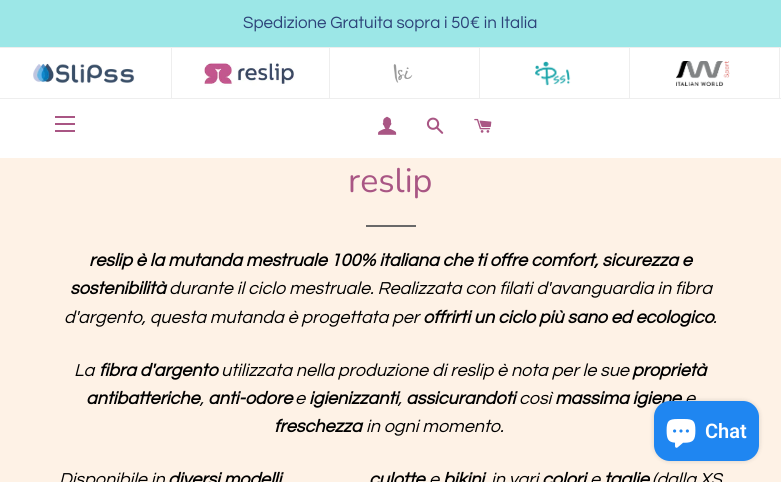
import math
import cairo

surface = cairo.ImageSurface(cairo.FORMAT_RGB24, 781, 482)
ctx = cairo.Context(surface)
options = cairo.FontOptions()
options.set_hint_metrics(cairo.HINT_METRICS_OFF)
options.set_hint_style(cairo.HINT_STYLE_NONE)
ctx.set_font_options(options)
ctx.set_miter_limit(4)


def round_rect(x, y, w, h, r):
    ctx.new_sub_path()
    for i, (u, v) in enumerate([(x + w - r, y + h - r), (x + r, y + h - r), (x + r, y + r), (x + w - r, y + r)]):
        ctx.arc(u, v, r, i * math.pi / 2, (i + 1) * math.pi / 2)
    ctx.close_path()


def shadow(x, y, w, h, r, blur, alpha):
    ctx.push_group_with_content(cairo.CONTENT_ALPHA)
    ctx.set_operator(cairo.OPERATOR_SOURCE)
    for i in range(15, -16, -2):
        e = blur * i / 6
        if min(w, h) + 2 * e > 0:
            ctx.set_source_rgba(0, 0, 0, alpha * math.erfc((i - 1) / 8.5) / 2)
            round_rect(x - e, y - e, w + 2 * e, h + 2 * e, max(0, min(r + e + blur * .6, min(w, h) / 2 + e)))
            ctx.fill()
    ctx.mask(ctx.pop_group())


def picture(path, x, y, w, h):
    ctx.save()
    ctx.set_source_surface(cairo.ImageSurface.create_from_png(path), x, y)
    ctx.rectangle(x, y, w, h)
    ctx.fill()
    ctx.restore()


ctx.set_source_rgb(0.996, 0.949, 0.902)
ctx.paint()
ctx.set_source_rgb(0.612, 0.906, 0.906)
ctx.rectangle(0, 0, 781, 47)
ctx.fill()
ctx.select_font_face("Questrial")
ctx.set_font_size(17)
ctx.set_source_rgb(0.176, 0.263, 0.475)
ctx.move_to(243, 28)
ctx.show_text("Spedizione Gratuita sopra i 50€ in Italia")
ctx.set_source_rgb(1, 1, 1)
ctx.rectangle(0, 48, 781, 50)
ctx.fill()
ctx.set_source_rgb(0.933, 0.933, 0.933)
ctx.rectangle(0, 47, 781, 1)
ctx.fill()
ctx.rectangle(0, 98, 781, 1)
ctx.fill()
ctx.rectangle(171, 48, 1, 50)
ctx.fill()
picture("img1.png", 33, 63, 102, 20)
ctx.rectangle(329, 48, 1, 50)
ctx.fill()
picture("img2.png", 204, 62, 91, 24)
ctx.rectangle(479, 48, 1, 50)
ctx.fill()
picture("img3.png", 393, 64, 20, 19)
ctx.rectangle(629, 48, 1, 50)
ctx.fill()
picture("img4.png", 535, 61, 36, 25)
ctx.rectangle(779, 48, 1, 50)
ctx.fill()
picture("img5.png", 676, 61, 54, 25)
ctx.set_source_rgb(1, 1, 1)
ctx.rectangle(0, 99, 781, 59)
ctx.fill()
ctx.set_source_rgb(0.663, 0.337, 0.518)
ctx.rectangle(55, 116, 20, 2)
ctx.fill()
ctx.rectangle(55, 123, 20, 2)
ctx.fill()
ctx.rectangle(55, 130, 20, 2)
ctx.fill()
picture("img6.png", 378, 116, 19, 19)
picture("img7.png", 426, 117, 18, 17)
picture("img8.png", 474, 118, 18, 15)
ctx.select_font_face("Nunito")
ctx.set_font_size(34)
ctx.move_to(348, 192)
ctx.show_text("reslip")
ctx.set_source_rgb(0.412, 0.412, 0.412)
ctx.rectangle(366, 225, 50, 2)
ctx.fill()
ctx.select_font_face("Questrial", cairo.FONT_SLANT_ITALIC, cairo.FONT_WEIGHT_BOLD)
ctx.set_font_size(18)
ctx.set_source_rgb(0, 0, 0)
ctx.move_to(89, 266)
ctx.show_text("reslip è la mutanda mestruale 100% italiana che ti offre comfort, sicurezza e")
ctx.move_to(70, 294)
ctx.show_text("sostenibilità")
ctx.select_font_face("Questrial", cairo.FONT_SLANT_ITALIC)
ctx.move_to(169, 294)
ctx.show_text("durante il ciclo mestruale. Realizzata con filati d'avanguardia in fibra")
ctx.move_to(64, 323)
ctx.show_text("d'argento, questa mutanda è progettata per")
ctx.select_font_face("Questrial", cairo.FONT_SLANT_ITALIC, cairo.FONT_WEIGHT_BOLD)
ctx.move_to(423, 323)
ctx.show_text("offrirti un ciclo più sano ed ecologico")
ctx.select_font_face("Questrial", cairo.FONT_SLANT_ITALIC)
ctx.move_to(713, 323)
ctx.show_text(".")
ctx.move_to(74, 376)
ctx.show_text("La")
ctx.select_font_face("Questrial", cairo.FONT_SLANT_ITALIC, cairo.FONT_WEIGHT_BOLD)
ctx.move_to(99, 376)
ctx.show_text("fibra d'argento")
ctx.select_font_face("Questrial", cairo.FONT_SLANT_ITALIC)
ctx.move_to(221, 376)
ctx.show_text("utilizzata nella produzione di reslip è nota per le sue")
ctx.select_font_face("Questrial", cairo.FONT_SLANT_ITALIC, cairo.FONT_WEIGHT_BOLD)
ctx.move_to(632, 376)
ctx.show_text("proprietà")
ctx.move_to(86, 404)
ctx.show_text("antibatteriche")
ctx.select_font_face("Questrial", cairo.FONT_SLANT_ITALIC)
ctx.move_to(200, 404)
ctx.show_text(",")
ctx.select_font_face("Questrial", cairo.FONT_SLANT_ITALIC, cairo.FONT_WEIGHT_BOLD)
ctx.move_to(208, 404)
ctx.show_text("anti-odore")
ctx.select_font_face("Questrial", cairo.FONT_SLANT_ITALIC)
ctx.move_to(295, 404)
ctx.show_text("e")
ctx.select_font_face("Questrial", cairo.FONT_SLANT_ITALIC, cairo.FONT_WEIGHT_BOLD)
ctx.move_to(309, 404)
ctx.show_text("igienizzanti")
ctx.move_to(406, 404)
ctx.show_text("assicurandoti")
ctx.select_font_face("Questrial", cairo.FONT_SLANT_ITALIC)
ctx.move_to(519, 404)
ctx.show_text("così")
ctx.select_font_face("Questrial", cairo.FONT_SLANT_ITALIC, cairo.FONT_WEIGHT_BOLD)
ctx.move_to(555, 404)
ctx.show_text("massima igiene")
ctx.select_font_face("Questrial", cairo.FONT_SLANT_ITALIC)
ctx.move_to(685, 404)
ctx.show_text("e")
ctx.move_to(398, 404)
ctx.show_text(",")
ctx.select_font_face("Questrial", cairo.FONT_SLANT_ITALIC, cairo.FONT_WEIGHT_BOLD)
ctx.move_to(274, 432)
ctx.show_text("freschezza")
ctx.select_font_face("Questrial", cairo.FONT_SLANT_ITALIC)
ctx.move_to(366, 432)
ctx.show_text("in ogni momento.")
ctx.move_to(59, 485)
ctx.show_text("Disponibile in")
ctx.select_font_face("Questrial", cairo.FONT_SLANT_ITALIC, cairo.FONT_WEIGHT_BOLD)
ctx.move_to(168, 485)
ctx.show_text("diversi modelli")
ctx.move_to(369, 485)
ctx.show_text("culotte")
ctx.select_font_face("Questrial", cairo.FONT_SLANT_ITALIC)
ctx.move_to(429, 485)
ctx.show_text("e")
ctx.select_font_face("Questrial", cairo.FONT_SLANT_ITALIC, cairo.FONT_WEIGHT_BOLD)
ctx.move_to(443, 485)
ctx.show_text("bikini")
ctx.select_font_face("Questrial", cairo.FONT_SLANT_ITALIC)
ctx.move_to(491, 485)
ctx.show_text("in vari")
ctx.select_font_face("Questrial", cairo.FONT_SLANT_ITALIC, cairo.FONT_WEIGHT_BOLD)
ctx.move_to(542, 485)
ctx.show_text("colori")
ctx.select_font_face("Questrial", cairo.FONT_SLANT_ITALIC)
ctx.move_to(590, 485)
ctx.show_text("e")
ctx.select_font_face("Questrial", cairo.FONT_SLANT_ITALIC, cairo.FONT_WEIGHT_BOLD)
ctx.move_to(604, 485)
ctx.show_text("taglie")
ctx.select_font_face("Questrial", cairo.FONT_SLANT_ITALIC)
ctx.move_to(652, 485)
ctx.show_text("(dalla XS")
ctx.set_source_rgb(0, 0, 0)
shadow(654, 401, 105, 60, 16, 2.5, 0.15)
ctx.set_source_rgb(0.122, 0.525, 0.945)
round_rect(654, 401, 105, 60, 16)
ctx.fill()
picture("img9.png", 666, 419, 30, 29)
ctx.select_font_face("Roboto SemiBold")
ctx.set_font_size(20)
ctx.set_source_rgb(1, 1, 1)
ctx.move_to(705, 438)
ctx.show_text("Chat")
surface.write_to_png("page.png")
